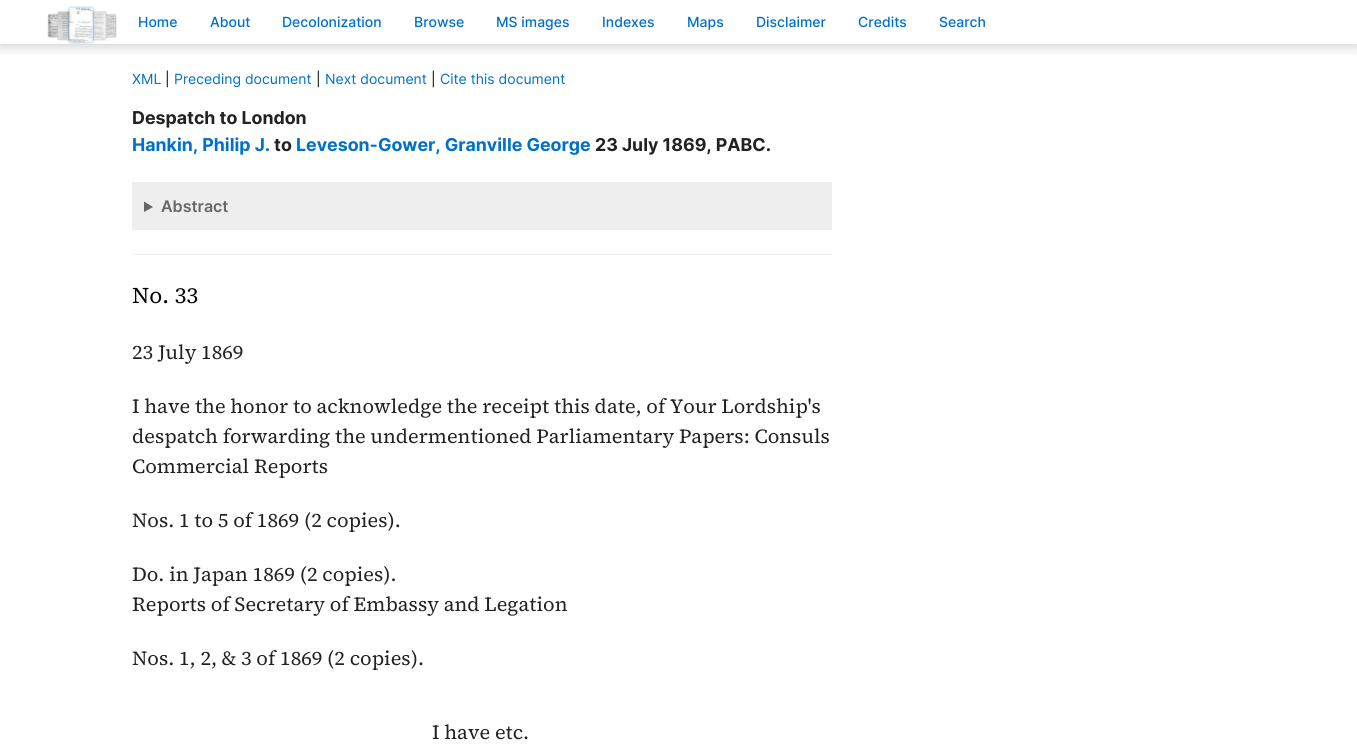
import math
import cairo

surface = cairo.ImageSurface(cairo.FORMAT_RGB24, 1357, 753)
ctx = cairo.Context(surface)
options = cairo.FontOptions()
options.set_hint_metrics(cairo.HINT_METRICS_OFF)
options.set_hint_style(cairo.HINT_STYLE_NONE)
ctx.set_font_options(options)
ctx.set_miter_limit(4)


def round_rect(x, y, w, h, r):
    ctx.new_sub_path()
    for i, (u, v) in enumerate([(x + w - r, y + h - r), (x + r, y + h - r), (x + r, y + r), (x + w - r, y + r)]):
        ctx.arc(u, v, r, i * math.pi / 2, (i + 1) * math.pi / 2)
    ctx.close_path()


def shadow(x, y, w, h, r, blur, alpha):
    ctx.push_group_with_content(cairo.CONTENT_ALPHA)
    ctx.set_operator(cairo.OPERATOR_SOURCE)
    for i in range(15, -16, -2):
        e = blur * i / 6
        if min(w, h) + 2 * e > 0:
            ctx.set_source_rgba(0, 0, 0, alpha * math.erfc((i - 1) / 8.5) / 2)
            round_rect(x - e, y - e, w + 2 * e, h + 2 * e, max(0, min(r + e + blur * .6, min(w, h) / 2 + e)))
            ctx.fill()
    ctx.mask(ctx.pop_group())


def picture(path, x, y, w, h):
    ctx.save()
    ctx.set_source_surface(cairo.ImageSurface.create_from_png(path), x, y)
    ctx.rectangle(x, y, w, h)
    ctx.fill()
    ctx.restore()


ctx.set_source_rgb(1, 1, 1)
ctx.paint()
ctx.save()
ctx.rectangle(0, 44, 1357, 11)
ctx.clip()
ctx.set_source_rgb(0, 0, 0)
shadow(0, 0, 1357, 44, 0, 7.5, 0.25)
ctx.restore()
picture("img1.png", 47, 6, 70, 38)
ctx.select_font_face("Inter Medium")
ctx.set_font_size(14)
ctx.set_source_rgb(0, 0.439, 0.788)
ctx.move_to(138, 27)
ctx.show_text("Home")
ctx.move_to(210, 27)
ctx.show_text("About")
ctx.move_to(282, 27)
ctx.show_text("Decolonization")
ctx.move_to(414, 27)
ctx.show_text("Browse")
ctx.move_to(496, 27)
ctx.show_text("MS images")
ctx.move_to(602, 27)
ctx.show_text("Indexes")
ctx.move_to(687, 27)
ctx.show_text("Maps")
ctx.move_to(756, 27)
ctx.show_text("Disclaimer")
ctx.move_to(858, 27)
ctx.show_text("Credits")
ctx.move_to(939, 27)
ctx.show_text("Search")
ctx.select_font_face("Inter")
ctx.move_to(132, 84)
ctx.show_text("XML")
ctx.set_source_rgb(0, 0, 0)
ctx.move_to(165, 84)
ctx.show_text("|")
ctx.set_source_rgb(0, 0.439, 0.788)
ctx.move_to(174, 84)
ctx.show_text("Preceding document")
ctx.set_source_rgb(0, 0, 0)
ctx.move_to(316, 84)
ctx.show_text("|")
ctx.set_source_rgb(0, 0.439, 0.788)
ctx.move_to(325, 84)
ctx.show_text("Next document")
ctx.set_source_rgb(0, 0, 0)
ctx.move_to(431, 84)
ctx.show_text("|")
ctx.set_source_rgb(0, 0.439, 0.788)
ctx.move_to(440, 84)
ctx.show_text("Cite this document")
ctx.set_source_rgb(0.922, 0.922, 0.922)
ctx.rectangle(132, 254, 700, 1)
ctx.fill()
ctx.select_font_face("Inter", cairo.FONT_SLANT_NORMAL, cairo.FONT_WEIGHT_BOLD)
ctx.set_font_size(17.75)
ctx.set_source_rgb(0.133, 0.133, 0.133)
ctx.move_to(132, 124)
ctx.show_text("Despatch to London")
ctx.set_source_rgb(0, 0.439, 0.788)
ctx.move_to(132, 151)
ctx.show_text("Hankin, Philip J.")
ctx.set_source_rgb(0.133, 0.133, 0.133)
ctx.move_to(274, 151)
ctx.show_text("to")
ctx.set_source_rgb(0, 0.439, 0.788)
ctx.move_to(296, 151)
ctx.show_text("Leveson-Gower, Granville George")
ctx.set_source_rgb(0.133, 0.133, 0.133)
ctx.move_to(595, 151)
ctx.show_text("23 July 1869, PABC.")
ctx.set_source_rgb(0.933, 0.933, 0.933)
ctx.rectangle(132, 182, 700, 48)
ctx.fill()
ctx.set_source_rgb(0.4, 0.4, 0.4)
ctx.new_path()
ctx.move_to(144, 201.5)
ctx.line_to(153, 207)
ctx.line_to(144, 212)
ctx.close_path()
ctx.fill()
ctx.select_font_face("Inter SemiBold")
ctx.set_font_size(16)
ctx.move_to(161, 212)
ctx.show_text("Abstract")
ctx.select_font_face("Source Serif 4")
ctx.set_font_size(22.5)
ctx.set_source_rgb(0, 0, 0)
ctx.move_to(132, 303)
ctx.show_text("No. 33")
ctx.set_font_size(20)
ctx.set_source_rgb(0.133, 0.133, 0.133)
ctx.move_to(132, 359)
ctx.show_text("23 July 1869")
ctx.move_to(132, 413)
ctx.show_text("I have the honor to acknowledge the receipt this date, of Your Lordship's")
ctx.move_to(132, 443)
ctx.show_text("despatch forwarding the undermentioned Parliamentary Papers: Consuls")
ctx.move_to(132, 473)
ctx.show_text("Commercial Reports")
ctx.move_to(132, 527)
ctx.show_text("Nos. 1 to 5 of 1869 (2 copies).")
ctx.move_to(132, 581)
ctx.show_text("Do. in Japan 1869 (2 copies).")
ctx.move_to(132, 611)
ctx.show_text("Reports of Secretary of Embassy and Legation")
ctx.move_to(132, 665)
ctx.show_text("Nos. 1, 2, & 3 of 1869 (2 copies).")
ctx.move_to(432, 739)
ctx.show_text("I have etc.")
surface.write_to_png("page.png")
